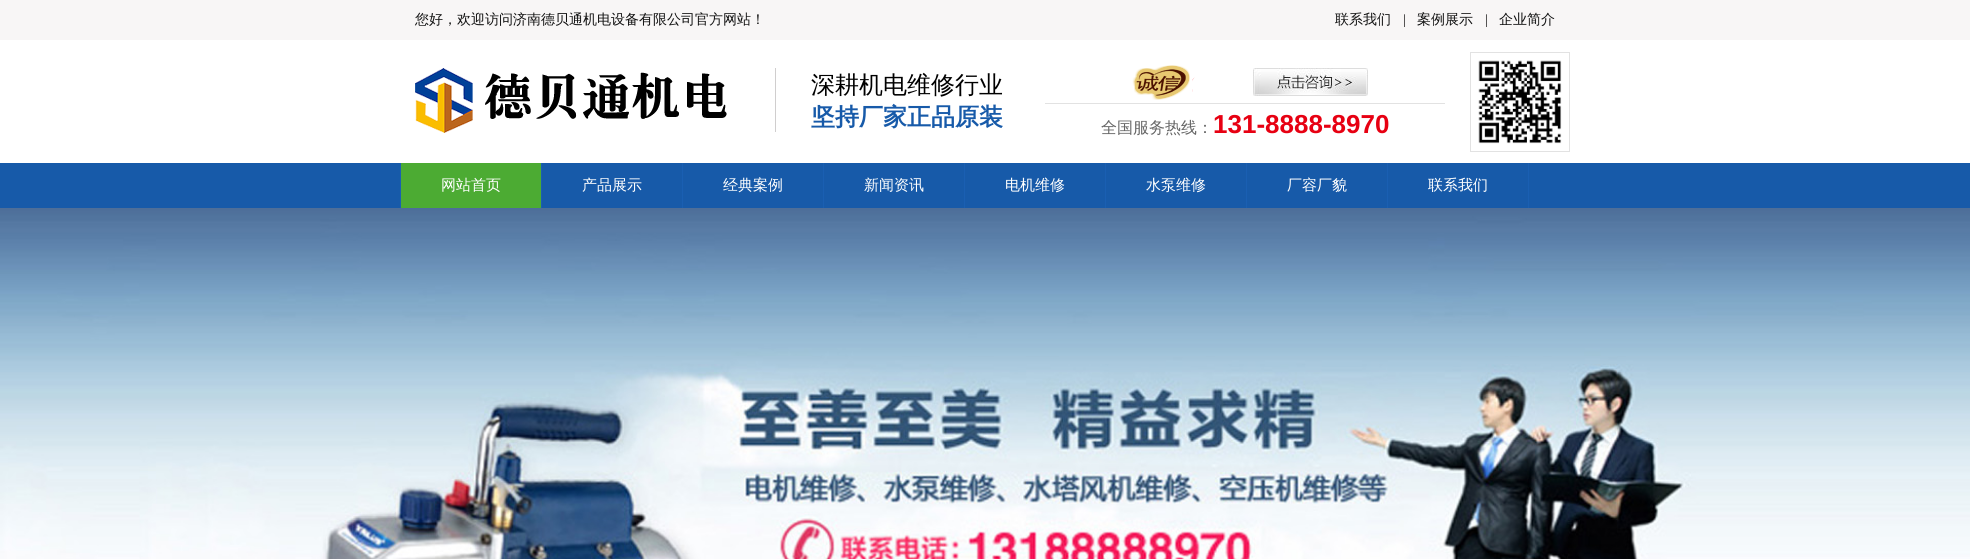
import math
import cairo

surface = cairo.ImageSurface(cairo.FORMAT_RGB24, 1970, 559)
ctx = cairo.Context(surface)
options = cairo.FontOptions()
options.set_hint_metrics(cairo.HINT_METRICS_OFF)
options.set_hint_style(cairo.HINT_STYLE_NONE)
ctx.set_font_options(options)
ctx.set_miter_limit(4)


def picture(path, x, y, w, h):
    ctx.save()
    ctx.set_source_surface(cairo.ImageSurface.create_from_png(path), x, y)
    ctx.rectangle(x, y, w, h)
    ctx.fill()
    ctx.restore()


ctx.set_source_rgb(1, 1, 1)
ctx.paint()
ctx.set_source_rgb(0.969, 0.961, 0.961)
ctx.rectangle(0, 0, 1970, 40)
ctx.fill()
ctx.select_font_face("WenQuanYi Zen Hei Medium")
ctx.set_font_size(14)
ctx.set_source_rgb(0.067, 0.067, 0.067)
ctx.move_to(415, 24)
ctx.show_text("您好，欢迎访问济南德贝通机电设备有限公司官方网站！")
ctx.move_to(1335, 24)
ctx.show_text("联系我们")
ctx.select_font_face("Liberation Serif")
ctx.move_to(1403, 24)
ctx.show_text("|")
ctx.select_font_face("WenQuanYi Zen Hei Medium")
ctx.move_to(1417, 24)
ctx.show_text("案例展示")
ctx.select_font_face("Liberation Serif")
ctx.move_to(1485, 24)
ctx.show_text("|")
ctx.select_font_face("WenQuanYi Zen Hei Medium")
ctx.move_to(1499, 24)
ctx.show_text("企业简介")
picture("img1.png", 415, 68, 312, 65)
ctx.set_source_rgb(0.816, 0.808, 0.808)
ctx.rectangle(775, 68, 1, 64)
ctx.fill()
ctx.set_font_size(24)
ctx.set_source_rgb(0, 0, 0)
ctx.move_to(811, 93)
ctx.show_text("深耕机电维修行业")
ctx.select_font_face("WenQuanYi Zen Hei", cairo.FONT_SLANT_NORMAL, cairo.FONT_WEIGHT_BOLD)
ctx.set_source_rgb(0.09, 0.353, 0.663)
ctx.move_to(811, 125)
ctx.show_text("坚持厂家正品原装")
picture("img2.png", 1132, 65, 63, 35)
picture("img3.png", 1253, 68, 115, 28)
ctx.rectangle(1470.5, 52.5, 99, 99)
ctx.set_source_rgb(0.886, 0.886, 0.886)
ctx.set_line_width(1)
ctx.stroke()
picture("img4.png", 1478, 60, 84, 84)
ctx.rectangle(1045, 103, 400, 1)
ctx.fill()
ctx.select_font_face("WenQuanYi Zen Hei Medium")
ctx.set_font_size(16)
ctx.set_source_rgb(0.4, 0.4, 0.4)
ctx.move_to(1101, 133)
ctx.show_text("全国服务热线：")
ctx.select_font_face("Liberation Sans", cairo.FONT_SLANT_NORMAL, cairo.FONT_WEIGHT_BOLD)
ctx.set_font_size(26)
ctx.set_source_rgb(0.906, 0, 0.071)
ctx.move_to(1213, 133)
ctx.show_text("131-8888-8970")
ctx.set_source_rgb(0.09, 0.353, 0.663)
ctx.rectangle(0, 163, 1970, 45)
ctx.fill()
ctx.set_source_rgb(0.102, 0.373, 0.698)
ctx.rectangle(400, 163, 1, 45)
ctx.fill()
ctx.set_source_rgb(0.298, 0.671, 0.2)
ctx.rectangle(401, 163, 140, 45)
ctx.fill()
ctx.set_source_rgb(0.102, 0.373, 0.698)
ctx.rectangle(541, 163, 1, 45)
ctx.fill()
ctx.select_font_face("WenQuanYi Zen Hei Medium")
ctx.set_font_size(15)
ctx.set_source_rgb(1, 1, 1)
ctx.move_to(441, 190)
ctx.show_text("网站首页")
ctx.set_source_rgb(0.102, 0.373, 0.698)
ctx.rectangle(682, 163, 1, 45)
ctx.fill()
ctx.set_source_rgb(1, 1, 1)
ctx.move_to(582, 190)
ctx.show_text("产品展示")
ctx.set_source_rgb(0.102, 0.373, 0.698)
ctx.rectangle(823, 163, 1, 45)
ctx.fill()
ctx.set_source_rgb(1, 1, 1)
ctx.move_to(723, 190)
ctx.show_text("经典案例")
ctx.set_source_rgb(0.102, 0.373, 0.698)
ctx.rectangle(964, 163, 1, 45)
ctx.fill()
ctx.set_source_rgb(1, 1, 1)
ctx.move_to(864, 190)
ctx.show_text("新闻资讯")
ctx.set_source_rgb(0.102, 0.373, 0.698)
ctx.rectangle(1105, 163, 1, 45)
ctx.fill()
ctx.set_source_rgb(1, 1, 1)
ctx.move_to(1005, 190)
ctx.show_text("电机维修")
ctx.set_source_rgb(0.102, 0.373, 0.698)
ctx.rectangle(1246, 163, 1, 45)
ctx.fill()
ctx.set_source_rgb(1, 1, 1)
ctx.move_to(1146, 190)
ctx.show_text("水泵维修")
ctx.set_source_rgb(0.102, 0.373, 0.698)
ctx.rectangle(1387, 163, 1, 45)
ctx.fill()
ctx.set_source_rgb(1, 1, 1)
ctx.move_to(1287, 190)
ctx.show_text("厂容厂貌")
ctx.set_source_rgb(0.102, 0.373, 0.698)
ctx.rectangle(1528, 163, 1, 45)
ctx.fill()
ctx.set_source_rgb(1, 1, 1)
ctx.move_to(1428, 190)
ctx.show_text("联系我们")
picture("img5.png", 0, 208, 1970, 351)
surface.write_to_png("page.png")
